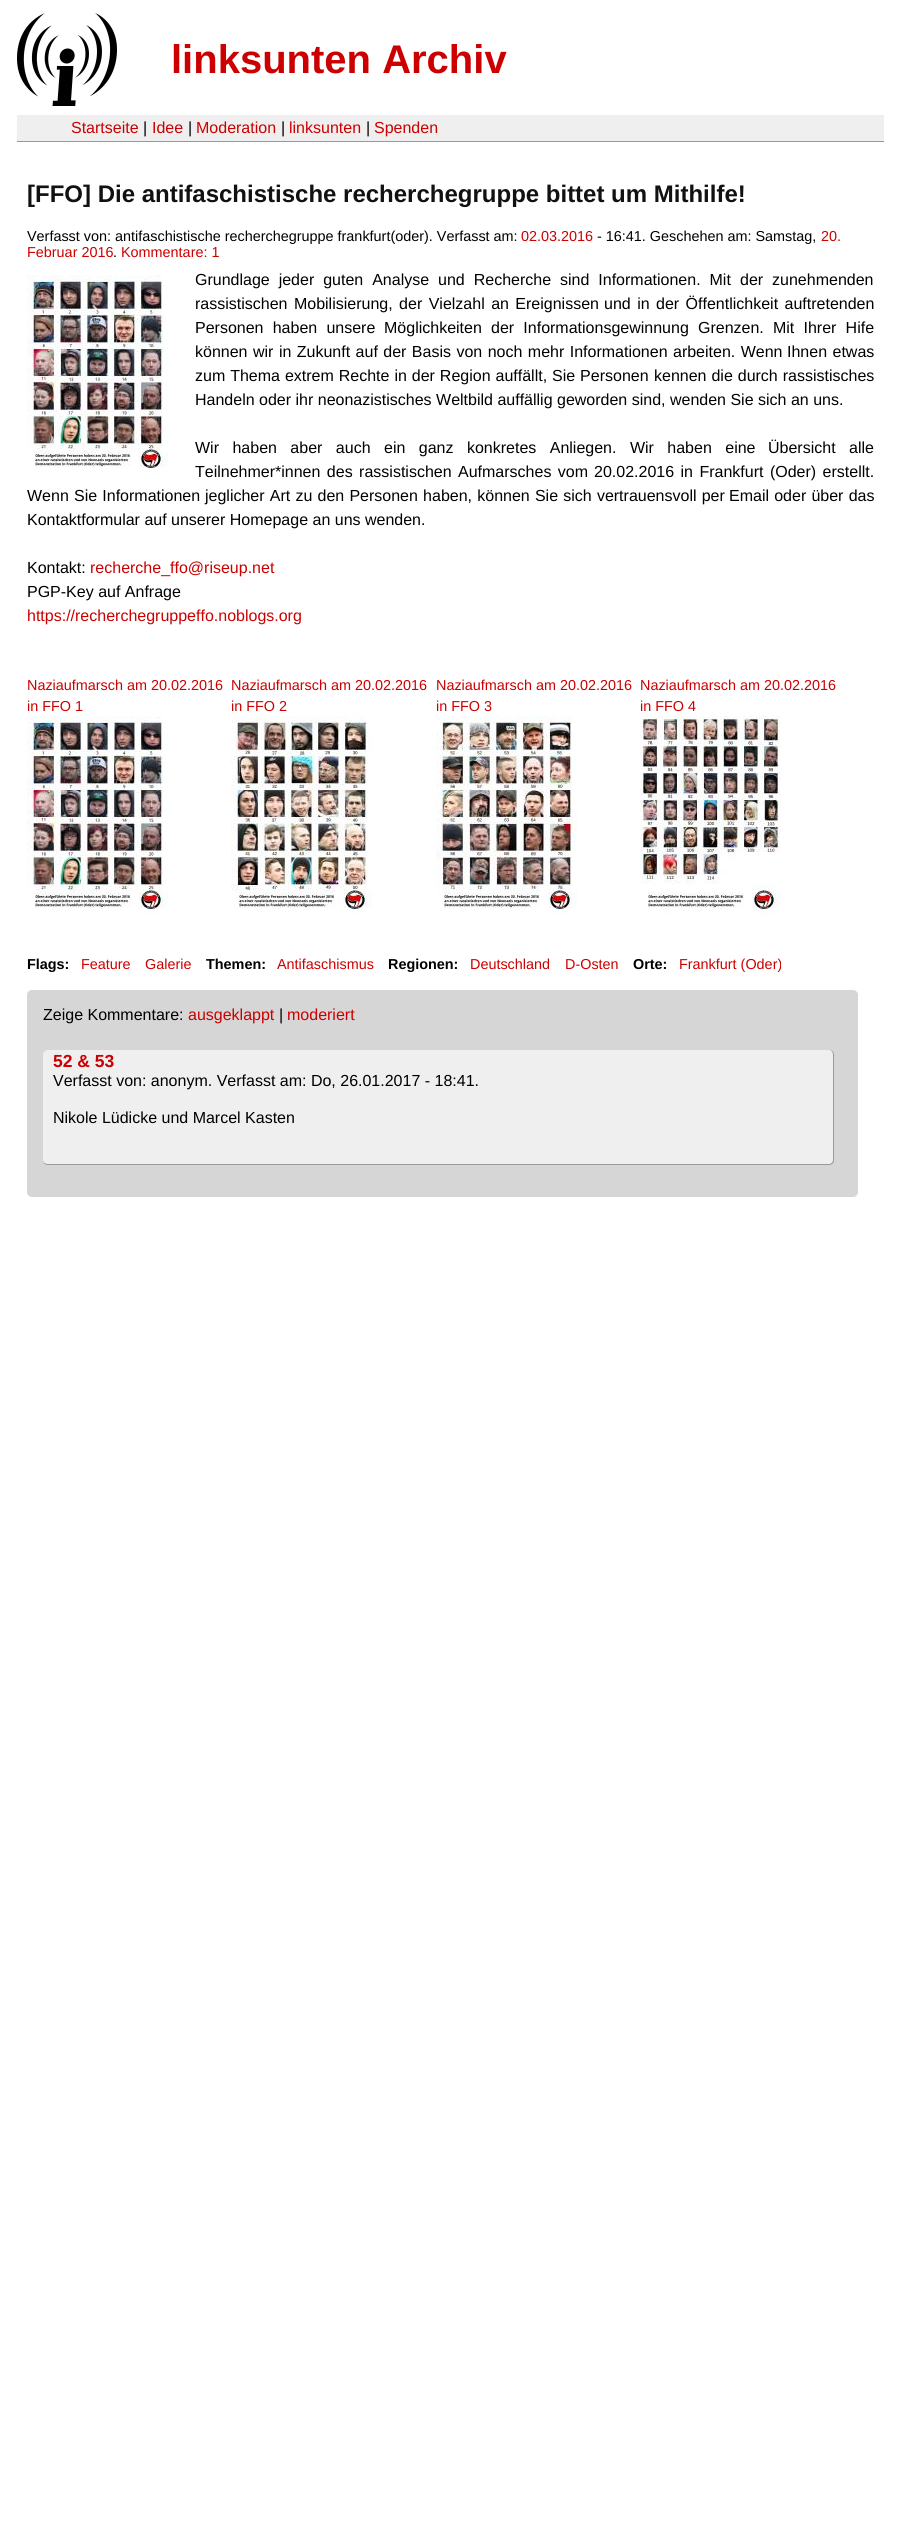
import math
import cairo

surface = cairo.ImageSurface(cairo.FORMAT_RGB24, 901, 2531)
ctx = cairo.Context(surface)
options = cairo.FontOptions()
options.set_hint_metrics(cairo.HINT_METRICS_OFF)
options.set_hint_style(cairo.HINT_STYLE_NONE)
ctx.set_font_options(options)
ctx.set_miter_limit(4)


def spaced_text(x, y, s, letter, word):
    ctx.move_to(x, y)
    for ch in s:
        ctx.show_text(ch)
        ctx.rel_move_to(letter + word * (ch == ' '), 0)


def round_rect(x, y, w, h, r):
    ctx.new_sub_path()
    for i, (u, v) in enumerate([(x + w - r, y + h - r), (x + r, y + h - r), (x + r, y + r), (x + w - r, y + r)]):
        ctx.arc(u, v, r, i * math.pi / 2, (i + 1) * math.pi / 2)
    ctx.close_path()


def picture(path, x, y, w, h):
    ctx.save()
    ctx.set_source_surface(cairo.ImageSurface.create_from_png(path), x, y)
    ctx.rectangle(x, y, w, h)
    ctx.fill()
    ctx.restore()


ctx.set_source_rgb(1, 1, 1)
ctx.paint()
picture("img1.png", 17, 13, 100, 93)
ctx.select_font_face("Liberation Sans", cairo.FONT_SLANT_NORMAL, cairo.FONT_WEIGHT_BOLD)
ctx.set_font_size(40)
ctx.set_source_rgb(0.8, 0, 0)
ctx.move_to(171, 73)
ctx.show_text("linksunten Archiv")
ctx.set_source_rgb(0.937, 0.937, 0.937)
ctx.rectangle(17, 115, 867, 26)
ctx.fill()
ctx.set_source_rgb(0.6, 0.6, 0.6)
ctx.rectangle(17, 141, 867, 1)
ctx.fill()
ctx.select_font_face("Liberation Sans")
ctx.set_font_size(16)
ctx.set_source_rgb(0.8, 0, 0)
ctx.move_to(71, 133)
ctx.show_text("Startseite")
ctx.set_source_rgb(0, 0, 0)
ctx.move_to(143, 133)
ctx.show_text("|")
ctx.set_source_rgb(0.8, 0, 0)
ctx.move_to(152, 133)
ctx.show_text("Idee")
ctx.set_source_rgb(0, 0, 0)
ctx.move_to(188, 133)
ctx.show_text("|")
ctx.set_source_rgb(0.8, 0, 0)
ctx.move_to(196, 133)
ctx.show_text("Moderation")
ctx.set_source_rgb(0, 0, 0)
ctx.move_to(281, 133)
ctx.show_text("|")
ctx.set_source_rgb(0.8, 0, 0)
ctx.move_to(289, 133)
ctx.show_text("linksunten")
ctx.set_source_rgb(0, 0, 0)
ctx.move_to(366, 133)
ctx.show_text("|")
ctx.set_source_rgb(0.8, 0, 0)
ctx.move_to(374, 133)
ctx.show_text("Spenden")
ctx.select_font_face("Liberation Sans", cairo.FONT_SLANT_NORMAL, cairo.FONT_WEIGHT_BOLD)
ctx.set_font_size(24)
ctx.set_source_rgb(0.067, 0.067, 0.067)
ctx.move_to(27, 202)
ctx.show_text("[FFO] Die antifaschistische recherchegruppe bittet um Mithilfe!")
ctx.select_font_face("Liberation Sans")
ctx.set_font_size(14.4)
ctx.set_source_rgb(0, 0, 0)
ctx.move_to(27, 241)
ctx.show_text("Verfasst von: antifaschistische recherchegruppe frankfurt(oder). Verfasst am:")
ctx.set_source_rgb(0.8, 0, 0)
ctx.move_to(521, 241)
ctx.show_text("02.03.2016")
ctx.set_source_rgb(0, 0, 0)
ctx.move_to(597, 241)
ctx.show_text("- 16:41. Geschehen am: Samstag,")
ctx.set_source_rgb(0.8, 0, 0)
ctx.move_to(821, 241)
ctx.show_text("20.")
ctx.move_to(27, 257)
ctx.show_text("Februar 2016")
ctx.set_source_rgb(0, 0, 0)
ctx.move_to(113, 257)
ctx.show_text(".")
ctx.set_source_rgb(0.8, 0, 0)
ctx.move_to(121, 257)
ctx.show_text("Kommentare: 1")
ctx.set_font_size(16)
ctx.set_source_rgb(0, 0, 0)
spaced_text(195, 285, "Grundlage jeder guten Analyse und Recherche sind Informationen. Mit", 0, 4.5)
spaced_text(740, 285, "der zunehmenden", 0, 4.5)
spaced_text(195, 309, "rassistischen Mobilisierung, der Vielzahl an Ereignissen", 0, 2)
spaced_text(604, 309, "und in der Öffentlichkeit auftretenden", 0, 2)
spaced_text(195, 333, "Personen haben unsere", 0, 4.75)
spaced_text(384, 333, "Möglichkeiten der Informationsgewinnung Grenzen. Mit Ihrer Hife", 0, 4.75)
ctx.move_to(195, 357)
ctx.show_text("können")
spaced_text(253, 357, "wir in Zukunft auf der Basis von noch mehr Informationen arbeiten. Wenn", 0, 1)
spaced_text(787, 357, "Ihnen etwas", 0, 1)
spaced_text(195, 381, "zum Thema extrem Rechte in der Region auffällt, Sie Personen", 0, 0.5)
spaced_text(654, 381, "kennen die durch rassistisches", 0, 0.5)
ctx.move_to(195, 405)
ctx.show_text("Handeln oder ihr neonazistisches Weltbild auffällig geworden sind, wenden Sie sich an uns.")
spaced_text(195, 453, "Wir haben aber auch ein ganz konkretes Anliegen. Wir haben eine", 0, 9)
spaced_text(768, 453, "Übersicht alle", 0, 9)
spaced_text(195, 477, "Teilnehmer*innen des rassistischen Aufmarsches vom", 0, 2)
spaced_text(594, 477, "20.02.2016 in Frankfurt (Oder) erstellt.", 0, 2)
spaced_text(27, 501, "Wenn Sie Informationen", 0, 0.75)
spaced_text(205, 501, "jeglicher Art zu den Personen haben, können Sie sich vertrauensvoll per", 0, 0.75)
spaced_text(729, 501, "Email oder über das", 0, 0.75)
ctx.move_to(27, 525)
ctx.show_text("Kontaktformular auf unserer Homepage an uns wenden.")
ctx.move_to(27, 573)
ctx.show_text("Kontakt:")
ctx.set_source_rgb(0.8, 0, 0)
ctx.move_to(90, 573)
ctx.show_text("recherche_ffo@riseup.net")
ctx.set_source_rgb(0, 0, 0)
ctx.move_to(27, 597)
ctx.show_text("PGP-Key auf Anfrage")
ctx.set_source_rgb(0.8, 0, 0)
ctx.move_to(27, 621)
ctx.show_text("https://recherchegruppeffo.noblogs.org")
ctx.set_font_size(14.4)
ctx.move_to(27, 690)
ctx.show_text("Naziaufmarsch am 20.02.2016")
ctx.move_to(27, 711)
ctx.show_text("in FFO 1")
picture("img2.png", 27, 716, 141, 199)
ctx.move_to(231, 690)
ctx.show_text("Naziaufmarsch am 20.02.2016")
ctx.move_to(231, 711)
ctx.show_text("in FFO 2")
picture("img3.png", 231, 716, 141, 199)
ctx.move_to(436, 690)
ctx.show_text("Naziaufmarsch am 20.02.2016")
ctx.move_to(436, 711)
ctx.show_text("in FFO 3")
picture("img4.png", 436, 716, 141, 199)
ctx.move_to(640, 690)
ctx.show_text("Naziaufmarsch am 20.02.2016")
ctx.move_to(640, 711)
ctx.show_text("in FFO 4")
picture("img5.png", 640, 716, 141, 199)
picture("img2.png", 27, 275, 141, 199)
ctx.select_font_face("Liberation Sans", cairo.FONT_SLANT_NORMAL, cairo.FONT_WEIGHT_BOLD)
ctx.set_source_rgb(0, 0, 0)
ctx.move_to(27, 969)
ctx.show_text("Flags:")
ctx.select_font_face("Liberation Sans")
ctx.set_source_rgb(0.8, 0, 0)
ctx.move_to(81, 969)
ctx.show_text("Feature")
ctx.move_to(145, 969)
ctx.show_text("Galerie")
ctx.select_font_face("Liberation Sans", cairo.FONT_SLANT_NORMAL, cairo.FONT_WEIGHT_BOLD)
ctx.set_source_rgb(0, 0, 0)
ctx.move_to(206, 969)
ctx.show_text("Themen:")
ctx.select_font_face("Liberation Sans")
ctx.set_source_rgb(0.8, 0, 0)
ctx.move_to(277, 969)
ctx.show_text("Antifaschismus")
ctx.select_font_face("Liberation Sans", cairo.FONT_SLANT_NORMAL, cairo.FONT_WEIGHT_BOLD)
ctx.set_source_rgb(0, 0, 0)
ctx.move_to(388, 969)
ctx.show_text("Regionen:")
ctx.select_font_face("Liberation Sans")
ctx.set_source_rgb(0.8, 0, 0)
ctx.move_to(470, 969)
ctx.show_text("Deutschland")
ctx.move_to(565, 969)
ctx.show_text("D-Osten")
ctx.select_font_face("Liberation Sans", cairo.FONT_SLANT_NORMAL, cairo.FONT_WEIGHT_BOLD)
ctx.set_source_rgb(0, 0, 0)
ctx.move_to(633, 969)
ctx.show_text("Orte:")
ctx.select_font_face("Liberation Sans")
ctx.set_source_rgb(0.8, 0, 0)
ctx.move_to(679, 969)
ctx.show_text("Frankfurt (Oder)")
ctx.set_source_rgb(0.835, 0.839, 0.835)
round_rect(27, 990, 831, 207, 5)
ctx.fill()
ctx.set_font_size(16)
ctx.set_source_rgb(0, 0, 0)
ctx.move_to(43, 1020)
ctx.show_text("Zeige Kommentare:")
ctx.set_source_rgb(0.8, 0, 0)
ctx.move_to(188, 1020)
ctx.show_text("ausgeklappt")
ctx.set_source_rgb(0, 0, 0)
ctx.move_to(279, 1020)
ctx.show_text("|")
ctx.set_source_rgb(0.8, 0, 0)
ctx.move_to(287, 1020)
ctx.show_text("moderiert")
ctx.set_source_rgb(0.937, 0.937, 0.937)
round_rect(43, 1050, 791, 115, 5)
ctx.fill()
ctx.set_source_rgb(0.6, 0.6, 0.6)
ctx.set_fill_rule(cairo.FILL_RULE_EVEN_ODD)
ctx.new_path()
ctx.move_to(48, 1050)
ctx.line_to(829, 1050)
ctx.curve_to(832, 1050, 834, 1052, 834, 1055)
ctx.line_to(834, 1160)
ctx.curve_to(834, 1163, 832, 1165, 829, 1165)
ctx.line_to(48, 1165)
ctx.curve_to(45, 1165, 43, 1163, 43, 1160)
ctx.line_to(43, 1055)
ctx.curve_to(43, 1052, 45, 1050, 48, 1050)
ctx.close_path()
ctx.move_to(48, 1050)
ctx.line_to(829, 1050)
ctx.curve_to(831, 1050, 833, 1052, 833, 1055)
ctx.line_to(833, 1160)
ctx.curve_to(833, 1162, 831, 1164, 829, 1164)
ctx.line_to(48, 1164)
ctx.curve_to(45, 1164, 43, 1162, 43, 1160)
ctx.line_to(43, 1055)
ctx.curve_to(43, 1052, 45, 1050, 48, 1050)
ctx.close_path()
ctx.fill()
ctx.select_font_face("Liberation Sans", cairo.FONT_SLANT_NORMAL, cairo.FONT_WEIGHT_BOLD)
ctx.set_font_size(17.5)
ctx.set_source_rgb(0.8, 0, 0)
ctx.move_to(53, 1067)
ctx.show_text("52 & 53")
ctx.select_font_face("Liberation Sans")
ctx.set_font_size(16)
ctx.set_source_rgb(0, 0, 0)
ctx.move_to(53, 1086)
ctx.show_text("Verfasst von: anonym. Verfasst am: Do, 26.01.2017 - 18:41.")
ctx.move_to(53, 1123)
ctx.show_text("Nikole Lüdicke und Marcel Kasten")
surface.write_to_png("page.png")
